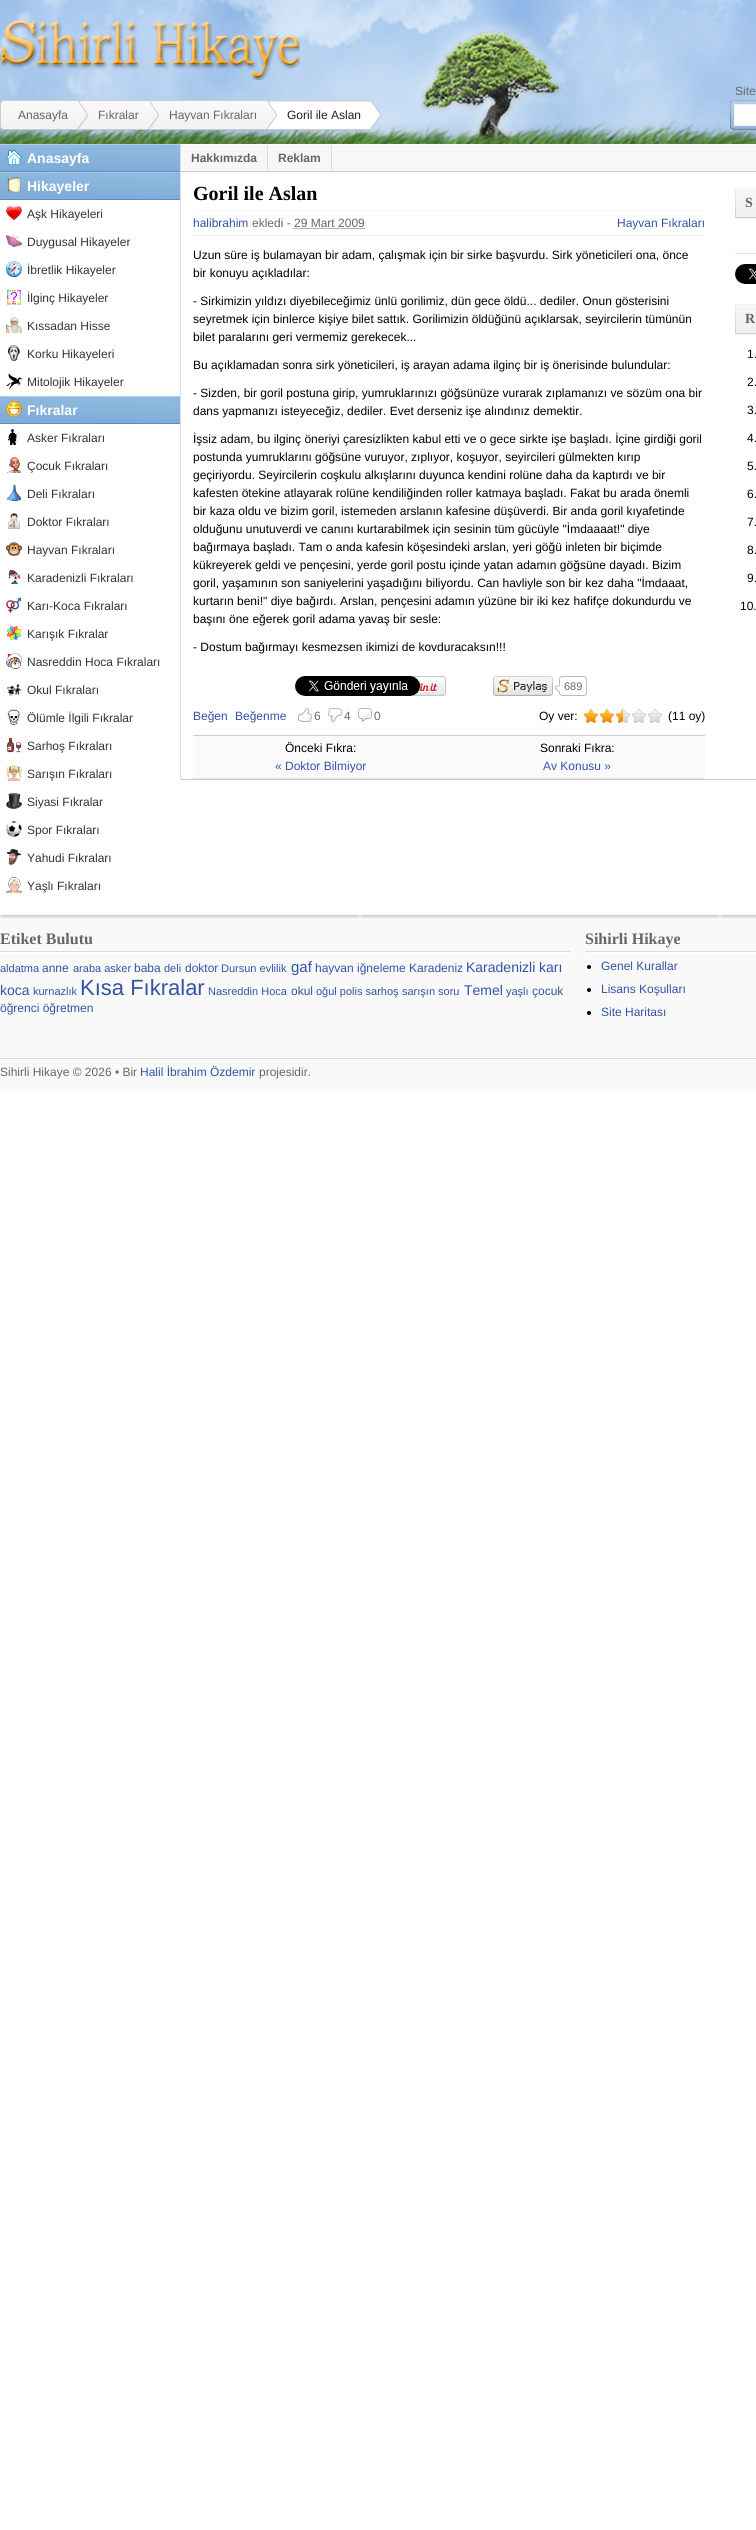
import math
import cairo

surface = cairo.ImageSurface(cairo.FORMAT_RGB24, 756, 2530)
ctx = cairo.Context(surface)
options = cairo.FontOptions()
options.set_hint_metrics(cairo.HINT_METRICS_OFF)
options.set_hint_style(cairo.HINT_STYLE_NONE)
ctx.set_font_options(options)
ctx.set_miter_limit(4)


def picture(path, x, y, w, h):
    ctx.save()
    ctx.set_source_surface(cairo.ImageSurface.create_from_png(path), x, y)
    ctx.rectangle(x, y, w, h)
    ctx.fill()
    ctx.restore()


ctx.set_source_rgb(1, 1, 1)
ctx.paint()
picture("img1.png", 0, 0, 756, 144)
picture("img2.png", 730, 100, 26, 30)
ctx.select_font_face("Liberation Sans")
ctx.set_font_size(12)
ctx.set_source_rgb(0.4, 0.4, 0.4)
ctx.move_to(735, 95)
ctx.show_text("Site")
picture("img3.png", 730, 100, 4, 30)
ctx.set_source_rgb(1, 1, 1)
ctx.rectangle(735, 105, 21, 20)
ctx.fill()
ctx.set_source_rgb(0.949, 0.949, 0.949)
ctx.rectangle(734, 104, 22, 1)
ctx.fill()
ctx.set_source_rgb(0.933, 0.933, 0.933)
ctx.rectangle(734, 125, 22, 1)
ctx.fill()
ctx.set_source_rgb(0.949, 0.949, 0.949)
ctx.rectangle(734, 104, 1, 22)
ctx.fill()
picture("img4.png", 0, 20, 300, 60)
picture("img9.png", 257, 100, 124, 31)
picture("img8.png", 139, 100, 138, 31)
picture("img7.png", 68, 100, 91, 31)
picture("img5.png", 8, 100, 80, 31)
picture("img6.png", 0, 100, 8, 31)
ctx.set_source_rgb(0.4, 0.4, 0.4)
ctx.move_to(18, 119)
ctx.show_text("Anasayfa")
ctx.move_to(98, 119)
ctx.show_text("Fıkralar")
ctx.move_to(169, 119)
ctx.show_text("Hayvan Fıkraları")
ctx.set_source_rgb(0.133, 0.133, 0.133)
ctx.move_to(287, 119)
ctx.show_text("Goril ile Aslan")
picture("img10.png", 0, 144, 180, 28)
picture("img11.png", 6, 150, 16, 15)
ctx.select_font_face("Liberation Sans", cairo.FONT_SLANT_NORMAL, cairo.FONT_WEIGHT_BOLD)
ctx.set_font_size(14)
ctx.set_source_rgb(1, 1, 1)
ctx.move_to(27, 163)
ctx.show_text("Anasayfa")
picture("img10.png", 0, 172, 180, 28)
picture("img12.png", 7, 177, 14, 16)
ctx.move_to(27, 191)
ctx.show_text("Hikayeler")
picture("img13.png", 6, 206, 16, 14)
ctx.select_font_face("Liberation Sans")
ctx.set_font_size(12)
ctx.set_source_rgb(0.2, 0.2, 0.2)
ctx.move_to(27, 218)
ctx.show_text("Aşk Hikayeleri")
picture("img14.png", 6, 234, 16, 14)
ctx.move_to(27, 246)
ctx.show_text("Duygusal Hikayeler")
picture("img15.png", 6, 261, 16, 16)
ctx.move_to(27, 274)
ctx.show_text("İbretlik Hikayeler")
picture("img16.png", 7, 290, 14, 15)
ctx.move_to(27, 302)
ctx.show_text("İlginç Hikayeler")
picture("img17.png", 6, 317, 16, 16)
ctx.move_to(27, 330)
ctx.show_text("Kıssadan Hisse")
picture("img18.png", 7, 345, 13, 16)
ctx.move_to(27, 358)
ctx.show_text("Korku Hikayeleri")
picture("img19.png", 6, 373, 16, 16)
ctx.move_to(27, 386)
ctx.show_text("Mitolojik Hikayeler")
picture("img10.png", 0, 396, 180, 28)
picture("img20.png", 6, 401, 16, 16)
ctx.select_font_face("Liberation Sans", cairo.FONT_SLANT_NORMAL, cairo.FONT_WEIGHT_BOLD)
ctx.set_font_size(14)
ctx.set_source_rgb(1, 1, 1)
ctx.move_to(27, 415)
ctx.show_text("Fıkralar")
picture("img21.png", 7, 429, 13, 16)
ctx.select_font_face("Liberation Sans")
ctx.set_font_size(12)
ctx.set_source_rgb(0.2, 0.2, 0.2)
ctx.move_to(27, 442)
ctx.show_text("Asker Fıkraları")
picture("img22.png", 7, 457, 15, 16)
ctx.move_to(27, 470)
ctx.show_text("Çocuk Fıkraları")
picture("img23.png", 7, 485, 14, 16)
ctx.move_to(27, 498)
ctx.show_text("Deli Fıkraları")
picture("img24.png", 8, 513, 12, 16)
ctx.move_to(27, 526)
ctx.show_text("Doktor Fıkraları")
picture("img25.png", 6, 542, 16, 14)
ctx.move_to(27, 554)
ctx.show_text("Hayvan Fıkraları")
picture("img26.png", 8, 570, 13, 14)
ctx.move_to(27, 582)
ctx.show_text("Karadenizli Fıkraları")
picture("img27.png", 6, 597, 16, 16)
ctx.move_to(27, 610)
ctx.show_text("Karı-Koca Fıkraları")
picture("img28.png", 6, 625, 16, 16)
ctx.move_to(27, 638)
ctx.show_text("Karışık Fıkralar")
picture("img29.png", 6, 653, 16, 16)
ctx.move_to(27, 666)
ctx.show_text("Nasreddin Hoca Fıkraları")
picture("img30.png", 6, 683, 16, 13)
ctx.move_to(27, 694)
ctx.show_text("Okul Fıkraları")
picture("img31.png", 7, 709, 13, 16)
ctx.move_to(27, 722)
ctx.show_text("Ölümle İlgili Fıkralar")
picture("img32.png", 7, 738, 14, 15)
ctx.move_to(27, 750)
ctx.show_text("Sarhoş Fıkraları")
picture("img33.png", 6, 765, 16, 16)
ctx.move_to(27, 778)
ctx.show_text("Sarışın Fıkraları")
picture("img34.png", 6, 793, 16, 16)
ctx.move_to(27, 806)
ctx.show_text("Siyasi Fıkralar")
picture("img35.png", 6, 821, 16, 16)
ctx.move_to(27, 834)
ctx.show_text("Spor Fıkraları")
picture("img36.png", 6, 849, 16, 16)
ctx.move_to(27, 862)
ctx.show_text("Yahudi Fıkraları")
picture("img37.png", 6, 877, 16, 16)
ctx.move_to(27, 890)
ctx.show_text("Yaşlı Fıkraları")
ctx.set_source_rgb(0.796, 0.796, 0.796)
ctx.rectangle(180, 779, 576, 1)
ctx.fill()
ctx.set_source_rgb(0.867, 0.867, 0.867)
ctx.rectangle(180, 144, 1, 636)
ctx.fill()
ctx.set_source_rgb(0.965, 0.965, 0.965)
ctx.rectangle(181, 145, 575, 26)
ctx.fill()
ctx.set_source_rgb(0.8, 0.8, 0.8)
ctx.rectangle(332, 171, 424, 1)
ctx.fill()
ctx.set_source_rgb(0.867, 0.867, 0.867)
ctx.rectangle(267, 145, 1, 27)
ctx.fill()
ctx.set_source_rgb(0.8, 0.8, 0.8)
ctx.rectangle(181, 171, 87, 1)
ctx.fill()
ctx.select_font_face("Liberation Sans", cairo.FONT_SLANT_NORMAL, cairo.FONT_WEIGHT_BOLD)
ctx.set_source_rgb(0.4, 0.4, 0.4)
ctx.move_to(191, 162)
ctx.show_text("Hakkımızda")
ctx.set_source_rgb(0.867, 0.867, 0.867)
ctx.rectangle(331, 145, 1, 27)
ctx.fill()
ctx.set_source_rgb(0.8, 0.8, 0.8)
ctx.rectangle(268, 171, 64, 1)
ctx.fill()
ctx.set_source_rgb(0.4, 0.4, 0.4)
ctx.move_to(278, 162)
ctx.show_text("Reklam")
ctx.select_font_face("Liberation Serif", cairo.FONT_SLANT_NORMAL, cairo.FONT_WEIGHT_BOLD)
ctx.set_font_size(20)
ctx.set_source_rgb(0, 0, 0)
ctx.move_to(193, 200)
ctx.show_text("Goril ile Aslan")
ctx.set_source_rgb(0.961, 0.961, 0.961)
ctx.rectangle(193, 210, 512, 1)
ctx.fill()
ctx.set_source_rgb(0.933, 0.933, 0.933)
ctx.rectangle(193, 235, 512, 1)
ctx.fill()
ctx.select_font_face("Liberation Sans")
ctx.set_font_size(12)
ctx.set_source_rgb(0.204, 0.325, 0.647)
ctx.move_to(193, 227)
ctx.show_text("halibrahim")
ctx.set_source_rgb(0.4, 0.4, 0.4)
ctx.move_to(252, 227)
ctx.show_text("ekledi - 29 Mart 2009")
ctx.set_source_rgb(0.204, 0.325, 0.647)
ctx.move_to(617, 227)
ctx.show_text("Hayvan Fıkraları")
ctx.new_path()
ctx.move_to(293.5, 228.5)
ctx.line_to(364.5, 228.5)
ctx.set_source_rgb(0.4, 0.4, 0.4)
ctx.set_line_width(1)
ctx.set_dash([1, 1])
ctx.stroke()
ctx.set_source_rgb(0, 0, 0)
ctx.move_to(193, 259)
ctx.show_text("Uzun süre iş bulamayan bir adam, çalışmak için bir sirke başvurdu. Sirk yöneticileri ona, önce")
ctx.move_to(193, 277)
ctx.show_text("bir konuyu açıkladılar:")
ctx.move_to(193, 305)
ctx.show_text("- Sirkimizin yıldızı diyebileceğimiz ünlü gorilimiz, dün gece öldü... dediler. Onun gösterisini")
ctx.move_to(193, 323)
ctx.show_text("seyretmek için binlerce kişiye bilet sattık. Gorilimizin öldüğünü açıklarsak, seyircilerin tümünün")
ctx.move_to(193, 341)
ctx.show_text("bilet paralarını geri vermemiz gerekecek...")
ctx.move_to(193, 369)
ctx.show_text("Bu açıklamadan sonra sirk yöneticileri, iş arayan adama ilginç bir iş önerisinde bulundular:")
ctx.move_to(193, 397)
ctx.show_text("- Sizden, bir goril postuna girip, yumruklarınızı göğsünüze vurarak zıplamanızı ve sözüm ona bir")
ctx.move_to(193, 415)
ctx.show_text("dans yapmanızı isteyeceğiz, dediler. Evet derseniz işe alındınız demektir.")
ctx.move_to(193, 443)
ctx.show_text("İşsiz adam, bu ilginç öneriyi çaresizlikten kabul etti ve o gece sirkte işe başladı. İçine girdiği goril")
ctx.move_to(193, 461)
ctx.show_text("postunda yumruklarını göğsüne vuruyor, zıplıyor, koşuyor, seyircileri gülmekten kırıp")
ctx.move_to(193, 479)
ctx.show_text("geçiriyordu. Seyircilerin coşkulu alkışlarını duyunca kendini rolüne daha da kaptırdı ve bir")
ctx.move_to(193, 497)
ctx.show_text("kafesten ötekine atlayarak rolüne kendiliğinden roller katmaya başladı. Fakat bu arada önemli")
ctx.move_to(193, 515)
ctx.show_text("bir kaza oldu ve bizim goril, istemeden arslanın kafesine düşüverdi. Bir anda goril kıyafetinde")
ctx.move_to(193, 533)
ctx.show_text("olduğunu unutuverdi ve canını kurtarabilmek için sesinin tüm gücüyle \"İmdaaaat!\" diye")
ctx.move_to(193, 551)
ctx.show_text("bağırmaya başladı. Tam o anda kafesin köşesindeki arslan, yeri göğü inleten bir biçimde")
ctx.move_to(193, 569)
ctx.show_text("kükreyerek geldi ve pençesini, yerde goril postu içinde yatan adamın göğsüne dayadı. Bizim")
ctx.move_to(193, 587)
ctx.show_text("goril, yaşamının son saniyelerini yaşadığını biliyordu. Can havliyle son bir kez daha \"İmdaaat,")
ctx.move_to(193, 605)
ctx.show_text("kurtarın beni!\" diye bağırdı. Arslan, pençesini adamın yüzüne bir iki kez hafifçe dokundurdu ve")
ctx.move_to(193, 623)
ctx.show_text("başını öne eğerek goril adama yavaş bir sesle:")
ctx.move_to(193, 651)
ctx.show_text("- Dostum bağırmayı kesmezsen ikimizi de kovduracaksın!!!")
picture("img39.png", 410, 676, 36, 20)
picture("img38.png", 295, 676, 125, 20)
picture("img40.png", 493, 676, 60, 20)
picture("img41.png", 554, 676, 8, 20)
picture("img42.png", 562, 676, 25, 20)
ctx.set_font_size(11)
ctx.set_source_rgb(0.4, 0.4, 0.4)
ctx.move_to(564, 690)
ctx.show_text("689")
ctx.set_font_size(12)
ctx.set_source_rgb(0.204, 0.325, 0.647)
ctx.move_to(193, 720)
ctx.show_text("Beğen")
ctx.move_to(235, 720)
ctx.show_text("Beğenme")
picture("img43.png", 298, 708, 14, 14)
ctx.set_source_rgb(0.4, 0.4, 0.4)
ctx.move_to(314, 720)
ctx.show_text("6")
picture("img44.png", 328, 708, 14, 14)
ctx.move_to(344, 720)
ctx.show_text("4")
picture("img45.png", 358, 708, 14, 14)
ctx.move_to(374, 720)
ctx.show_text("0")
ctx.set_source_rgb(0, 0, 0)
ctx.move_to(539, 720)
ctx.show_text("Oy ver:")
picture("img46.png", 584, 709, 14, 14)
picture("img46.png", 600, 709, 14, 14)
picture("img47.png", 616, 709, 14, 14)
picture("img48.png", 632, 709, 14, 14)
picture("img48.png", 648, 709, 14, 14)
ctx.move_to(668, 720)
ctx.show_text("(11 oy)")
ctx.set_source_rgb(0.98, 0.98, 0.98)
ctx.rectangle(193, 736, 512, 42)
ctx.fill()
ctx.set_source_rgb(0.8, 0.8, 0.8)
ctx.rectangle(193, 735, 512, 1)
ctx.fill()
ctx.set_source_rgb(0.914, 0.914, 0.914)
ctx.rectangle(193, 778, 512, 1)
ctx.fill()
ctx.set_source_rgb(0, 0, 0)
ctx.move_to(285, 752)
ctx.show_text("Önceki Fıkra:")
ctx.set_source_rgb(0.204, 0.325, 0.647)
ctx.move_to(275, 770)
ctx.show_text("« Doktor Bilmiyor")
ctx.set_source_rgb(0, 0, 0)
ctx.move_to(540, 752)
ctx.show_text("Sonraki Fıkra:")
ctx.set_source_rgb(0.204, 0.325, 0.647)
ctx.move_to(543, 770)
ctx.show_text("Av Konusu »")
ctx.set_source_rgb(0.949, 0.949, 0.949)
ctx.rectangle(735, 188, 21, 31)
ctx.fill()
picture("img49.png", 735, 189, 21, 29)
ctx.select_font_face("Liberation Serif", cairo.FONT_SLANT_NORMAL, cairo.FONT_WEIGHT_BOLD)
ctx.set_font_size(14)
ctx.set_source_rgb(0.4, 0.4, 0.4)
ctx.move_to(745, 207)
ctx.show_text("S")
ctx.set_source_rgb(0.867, 0.867, 0.867)
ctx.rectangle(735, 253, 21, 1)
ctx.fill()
picture("img50.png", 735, 264, 21, 20)
ctx.set_source_rgb(0.949, 0.949, 0.949)
ctx.rectangle(735, 304, 21, 31)
ctx.fill()
picture("img49.png", 735, 305, 21, 29)
ctx.set_source_rgb(0.4, 0.4, 0.4)
ctx.move_to(745, 323)
ctx.show_text("R")
ctx.select_font_face("Liberation Sans")
ctx.set_font_size(12)
ctx.set_source_rgb(0, 0, 0)
ctx.move_to(747, 358)
ctx.show_text("1.")
ctx.move_to(747, 386)
ctx.show_text("2.")
ctx.move_to(747, 414)
ctx.show_text("3.")
ctx.move_to(747, 442)
ctx.show_text("4.")
ctx.move_to(747, 470)
ctx.show_text("5.")
ctx.move_to(747, 498)
ctx.show_text("6.")
ctx.move_to(747, 526)
ctx.show_text("7.")
ctx.move_to(747, 554)
ctx.show_text("8.")
ctx.move_to(747, 582)
ctx.show_text("9.")
ctx.move_to(740, 610)
ctx.show_text("10.")
ctx.set_source_rgb(0.973, 0.973, 0.973)
ctx.rectangle(0, 919, 756, 170)
ctx.fill()
picture("img51.png", 0, 915, 756, 4)
ctx.set_source_rgb(0.867, 0.867, 0.867)
ctx.rectangle(0, 1058, 756, 1)
ctx.fill()
ctx.rectangle(0, 951, 570, 1)
ctx.fill()
ctx.select_font_face("Liberation Serif", cairo.FONT_SLANT_NORMAL, cairo.FONT_WEIGHT_BOLD)
ctx.set_font_size(16)
ctx.set_source_rgb(0.4, 0.4, 0.4)
ctx.move_to(0, 944)
ctx.show_text("Etiket Bulutu")
ctx.set_source_rgb(1, 1, 1)
ctx.rectangle(0, 952, 570, 1)
ctx.fill()
ctx.select_font_face("Liberation Sans")
ctx.set_font_size(11)
ctx.set_source_rgb(0.204, 0.325, 0.647)
ctx.move_to(0, 972)
ctx.show_text("aldatma")
ctx.set_font_size(12)
ctx.move_to(42, 972)
ctx.show_text("anne")
ctx.set_font_size(11)
ctx.move_to(73, 972)
ctx.show_text("araba asker")
ctx.set_font_size(12)
ctx.move_to(134, 972)
ctx.show_text("baba")
ctx.set_font_size(11)
ctx.move_to(164, 972)
ctx.show_text("deli")
ctx.set_font_size(12)
ctx.move_to(185, 972)
ctx.show_text("doktor")
ctx.set_font_size(11)
ctx.move_to(221, 972)
ctx.show_text("Dursun evlilik")
ctx.set_font_size(15)
ctx.move_to(291, 972)
ctx.show_text("gaf")
ctx.set_font_size(12)
ctx.move_to(315, 972)
ctx.show_text("hayvan iğneleme Karadeniz")
ctx.set_font_size(14)
ctx.move_to(466, 972)
ctx.show_text("Karadenizli")
ctx.move_to(539, 972)
ctx.show_text("karı")
ctx.move_to(0, 995)
ctx.show_text("koca")
ctx.set_font_size(11)
ctx.move_to(33, 995)
ctx.show_text("kurnazlık")
ctx.set_font_size(22)
ctx.move_to(80, 995)
ctx.show_text("Kısa Fıkralar")
ctx.set_font_size(11)
ctx.move_to(208, 995)
ctx.show_text("Nasreddin Hoca")
ctx.set_font_size(12)
ctx.move_to(291, 995)
ctx.show_text("okul")
ctx.set_font_size(11)
ctx.move_to(316, 995)
ctx.show_text("oğul polis sarhoş")
ctx.move_to(402, 995)
ctx.show_text("sarışın soru")
ctx.set_font_size(14)
ctx.move_to(464, 995)
ctx.show_text("Temel")
ctx.set_font_size(11)
ctx.move_to(506, 995)
ctx.show_text("yaşlı")
ctx.set_font_size(12)
ctx.move_to(532, 995)
ctx.show_text("çocuk")
ctx.move_to(0, 1012)
ctx.show_text("öğrenci öğretmen")
ctx.set_source_rgb(0.867, 0.867, 0.867)
ctx.rectangle(585, 951, 171, 1)
ctx.fill()
ctx.select_font_face("Liberation Serif", cairo.FONT_SLANT_NORMAL, cairo.FONT_WEIGHT_BOLD)
ctx.set_font_size(16)
ctx.set_source_rgb(0.4, 0.4, 0.4)
ctx.move_to(585, 944)
ctx.show_text("Sihirli Hikaye")
ctx.set_source_rgb(1, 1, 1)
ctx.rectangle(585, 952, 171, 1)
ctx.fill()
ctx.set_source_rgb(0, 0, 0)
ctx.arc(589, 967, 2, 0, 2 * math.pi)
ctx.fill()
ctx.select_font_face("Liberation Sans")
ctx.set_font_size(12)
ctx.set_source_rgb(0.204, 0.325, 0.647)
ctx.move_to(601, 970)
ctx.show_text("Genel Kurallar")
ctx.set_source_rgb(0, 0, 0)
ctx.new_path()
ctx.arc(589, 990, 2, 0, 2 * math.pi)
ctx.fill()
ctx.set_source_rgb(0.204, 0.325, 0.647)
ctx.move_to(601, 993)
ctx.show_text("Lisans Koşulları")
ctx.set_source_rgb(0, 0, 0)
ctx.new_path()
ctx.arc(589, 1013, 2, 0, 2 * math.pi)
ctx.fill()
ctx.set_source_rgb(0.204, 0.325, 0.647)
ctx.move_to(601, 1016)
ctx.show_text("Site Haritası")
ctx.set_source_rgb(1, 1, 1)
ctx.rectangle(0, 1059, 756, 1)
ctx.fill()
ctx.set_source_rgb(0.4, 0.4, 0.4)
ctx.move_to(0, 1076)
ctx.show_text("Sihirli Hikaye © 2026 • Bir")
ctx.set_source_rgb(0.204, 0.325, 0.647)
ctx.move_to(140, 1076)
ctx.show_text("Halil İbrahim Özdemir")
ctx.set_source_rgb(0.4, 0.4, 0.4)
ctx.move_to(259, 1076)
ctx.show_text("projesidir.")
surface.write_to_png("page.png")
